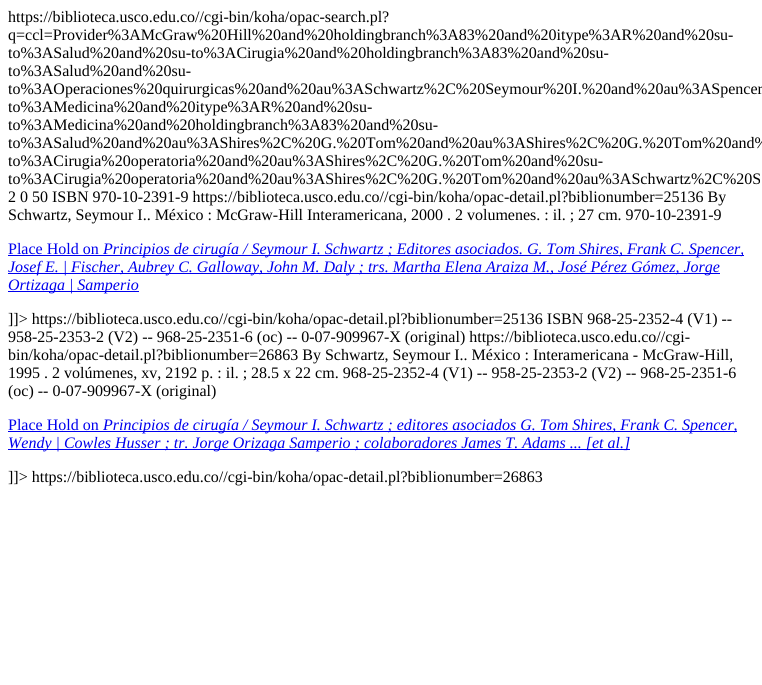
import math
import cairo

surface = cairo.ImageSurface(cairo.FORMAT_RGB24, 762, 685)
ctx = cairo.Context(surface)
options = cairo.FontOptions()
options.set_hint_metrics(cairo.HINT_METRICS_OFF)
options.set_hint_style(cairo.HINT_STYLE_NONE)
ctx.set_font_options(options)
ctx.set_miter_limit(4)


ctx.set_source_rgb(1, 1, 1)
ctx.paint()
ctx.select_font_face("Liberation Serif")
ctx.set_font_size(16)
ctx.set_source_rgb(0, 0, 0)
ctx.move_to(8, 22)
ctx.show_text("https://biblioteca.usco.edu.co//cgi-bin/koha/opac-search.pl?")
ctx.move_to(8, 40)
ctx.show_text("q=ccl=Provider%3AMcGraw%20Hill%20and%20holdingbranch%3A83%20and%20itype%3AR%20and%20su-")
ctx.move_to(8, 58)
ctx.show_text("to%3ASalud%20and%20su-to%3ACirugia%20and%20holdingbranch%3A83%20and%20su-")
ctx.move_to(8, 76)
ctx.show_text("to%3ASalud%20and%20su-")
ctx.move_to(8, 94)
ctx.show_text("to%3AOperaciones%20quirurgicas%20and%20au%3ASchwartz%2C%20Seymour%20I.%20and%20au%3ASpencer")
ctx.move_to(8, 112)
ctx.show_text("to%3AMedicina%20and%20itype%3AR%20and%20su-")
ctx.move_to(8, 130)
ctx.show_text("to%3AMedicina%20and%20holdingbranch%3A83%20and%20su-")
ctx.move_to(8, 148)
ctx.show_text("to%3ASalud%20and%20au%3AShires%2C%20G.%20Tom%20and%20au%3AShires%2C%20G.%20Tom%20and%")
ctx.move_to(8, 166)
ctx.show_text("to%3ACirugia%20operatoria%20and%20au%3AShires%2C%20G.%20Tom%20and%20su-")
ctx.move_to(8, 184)
ctx.show_text("to%3ACirugia%20operatoria%20and%20au%3AShires%2C%20G.%20Tom%20and%20au%3ASchwartz%2C%20S")
ctx.move_to(8, 202)
ctx.show_text("2 0 50 ISBN 970-10-2391-9 https://biblioteca.usco.edu.co//cgi-bin/koha/opac-detail.pl?biblionumber=25136 By")
ctx.move_to(8, 220)
ctx.show_text("Schwartz, Seymour I.. México : McGraw-Hill Interamericana, 2000 . 2 volumenes. : il. ; 27 cm. 970-10-2391-9")
ctx.set_source_rgb(0, 0, 0.933)
ctx.move_to(8, 254)
ctx.show_text("Place Hold on")
ctx.rectangle(8, 255, 736, 1)
ctx.fill()
ctx.select_font_face("Liberation Serif", cairo.FONT_SLANT_ITALIC)
ctx.move_to(103, 254)
ctx.show_text("Principios de cirugía / Seymour I. Schwartz ; Editores asociados. G. Tom Shires, Frank C. Spencer,")
ctx.rectangle(8, 273, 712, 1)
ctx.fill()
ctx.move_to(8, 272)
ctx.show_text("Josef E. | Fischer, Aubrey C. Galloway, John M. Daly ; trs. Martha Elena Araiza M., José Pérez Gómez, Jorge")
ctx.rectangle(8, 291, 131, 1)
ctx.fill()
ctx.move_to(8, 290)
ctx.show_text("Ortizaga | Samperio")
ctx.select_font_face("Liberation Serif")
ctx.set_source_rgb(0, 0, 0)
ctx.move_to(8, 324)
ctx.show_text("]]> https://biblioteca.usco.edu.co//cgi-bin/koha/opac-detail.pl?biblionumber=25136 ISBN 968-25-2352-4 (V1) --")
ctx.move_to(8, 342)
ctx.show_text("958-25-2353-2 (V2) -- 968-25-2351-6 (oc) -- 0-07-909967-X (original) https://biblioteca.usco.edu.co//cgi-")
ctx.move_to(8, 360)
ctx.show_text("bin/koha/opac-detail.pl?biblionumber=26863 By Schwartz, Seymour I.. México : Interamericana - McGraw-Hill,")
ctx.move_to(8, 378)
ctx.show_text("1995 . 2 volúmenes, xv, 2192 p. : il. ; 28.5 x 22 cm. 968-25-2352-4 (V1) -- 958-25-2353-2 (V2) -- 968-25-2351-6")
ctx.move_to(8, 396)
ctx.show_text("(oc) -- 0-07-909967-X (original)")
ctx.set_source_rgb(0, 0, 0.933)
ctx.move_to(8, 430)
ctx.show_text("Place Hold on")
ctx.rectangle(8, 431, 729, 1)
ctx.fill()
ctx.select_font_face("Liberation Serif", cairo.FONT_SLANT_ITALIC)
ctx.move_to(103, 430)
ctx.show_text("Principios de cirugía / Seymour I. Schwartz ; editores asociados G. Tom Shires, Frank C. Spencer,")
ctx.rectangle(8, 449, 622, 1)
ctx.fill()
ctx.move_to(8, 448)
ctx.show_text("Wendy | Cowles Husser ; tr. Jorge Orizaga Samperio ; colaboradores James T. Adams ... [et al.]")
ctx.select_font_face("Liberation Serif")
ctx.set_source_rgb(0, 0, 0)
ctx.move_to(8, 482)
ctx.show_text("]]> https://biblioteca.usco.edu.co//cgi-bin/koha/opac-detail.pl?biblionumber=26863")
surface.write_to_png("page.png")
